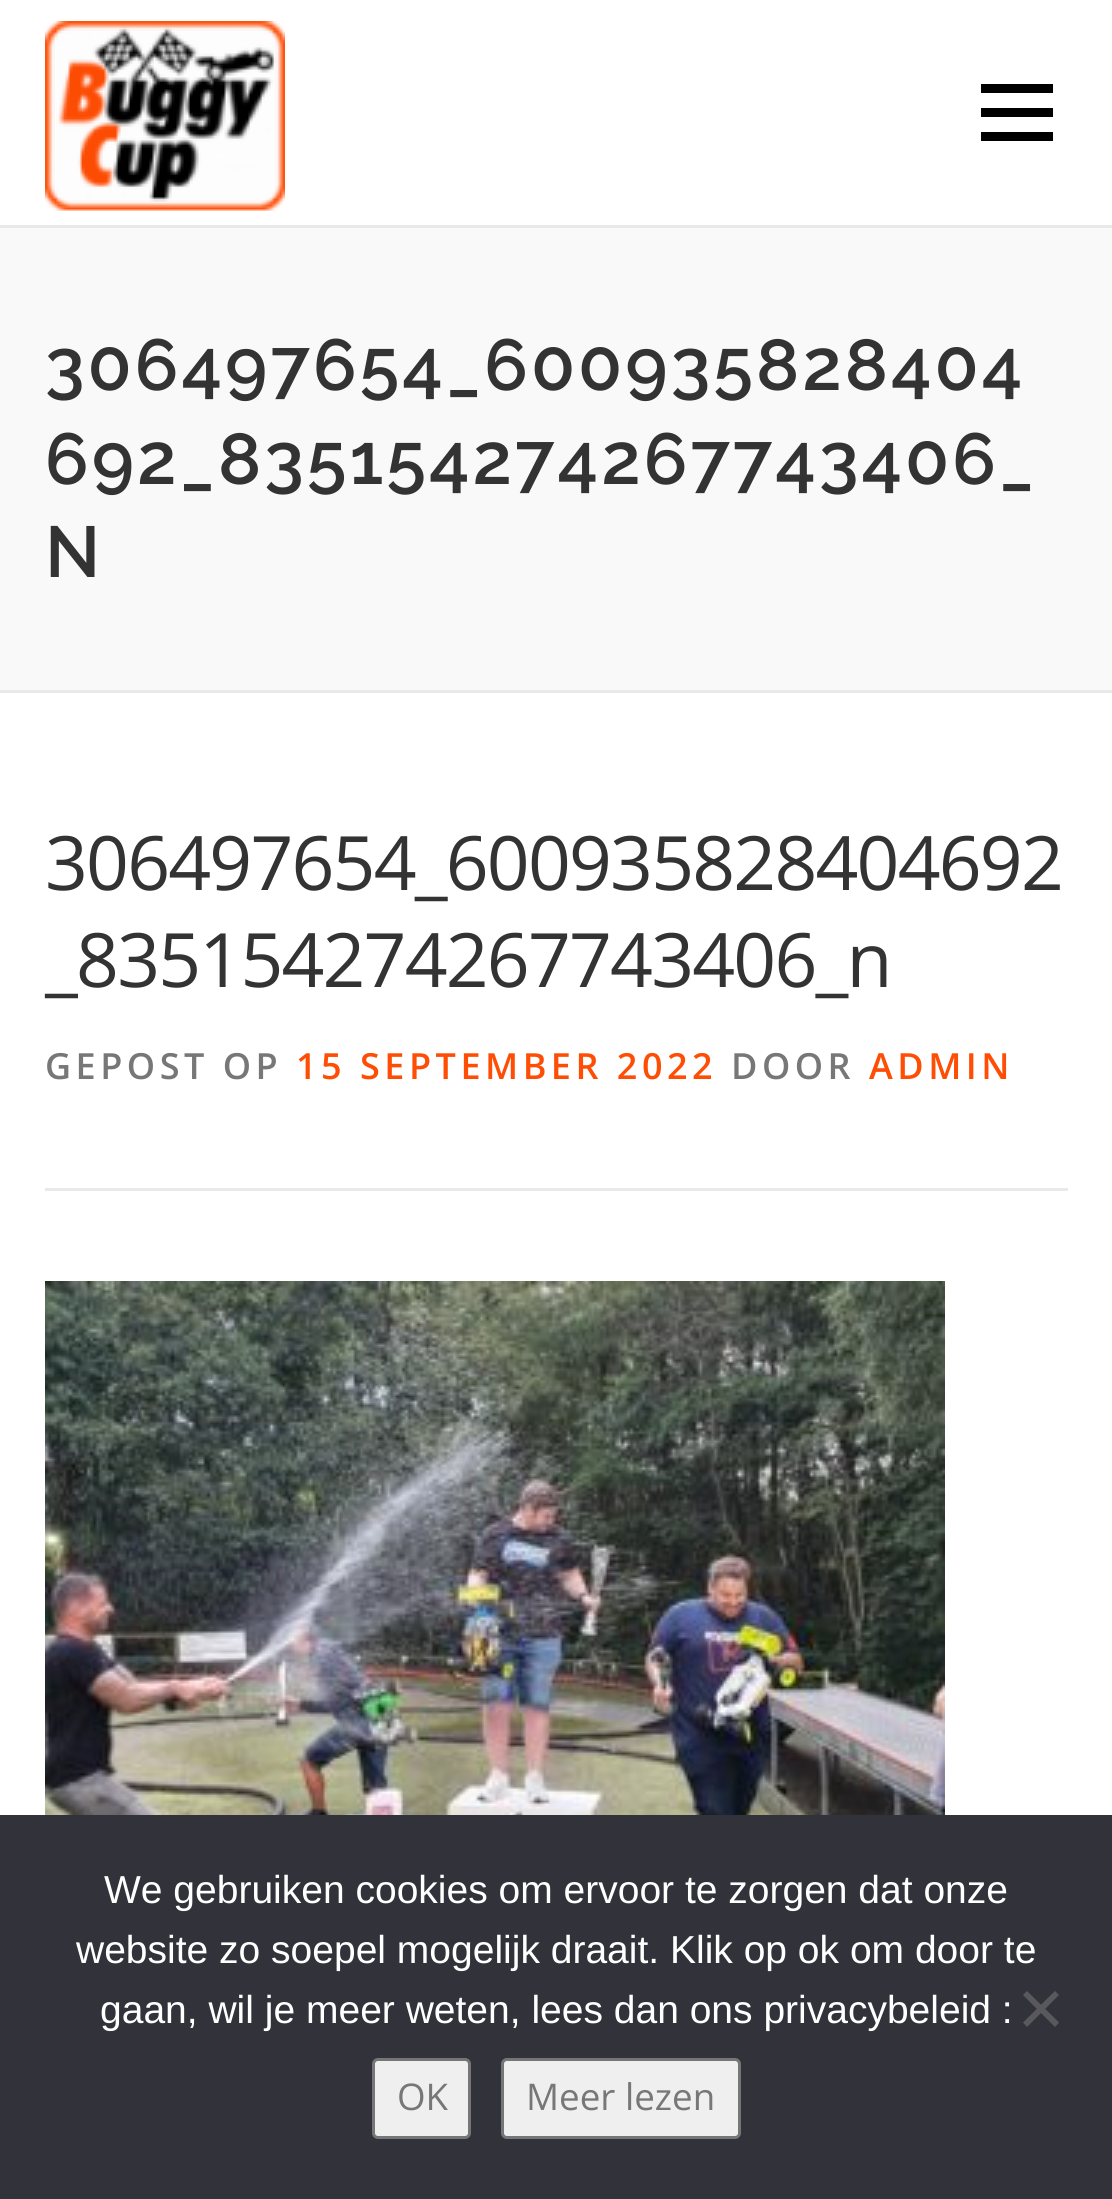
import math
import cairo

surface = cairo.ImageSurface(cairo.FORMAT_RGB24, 1112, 2199)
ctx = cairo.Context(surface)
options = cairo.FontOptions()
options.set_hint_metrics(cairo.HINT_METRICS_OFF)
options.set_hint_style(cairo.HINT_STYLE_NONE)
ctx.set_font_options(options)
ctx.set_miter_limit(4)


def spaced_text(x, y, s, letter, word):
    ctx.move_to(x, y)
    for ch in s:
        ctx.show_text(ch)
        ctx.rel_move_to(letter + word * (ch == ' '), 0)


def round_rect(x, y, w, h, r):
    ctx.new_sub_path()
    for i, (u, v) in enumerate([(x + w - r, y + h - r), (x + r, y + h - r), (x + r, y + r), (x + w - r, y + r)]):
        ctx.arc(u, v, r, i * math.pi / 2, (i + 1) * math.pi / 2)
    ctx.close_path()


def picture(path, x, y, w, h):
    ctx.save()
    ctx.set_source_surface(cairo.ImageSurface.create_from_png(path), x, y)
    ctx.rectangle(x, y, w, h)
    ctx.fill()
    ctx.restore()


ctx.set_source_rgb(1, 1, 1)
ctx.paint()
picture("img1.png", 45, 21, 240, 190)
ctx.set_source_rgb(0, 0, 0)
ctx.rectangle(981, 108, 72, 9)
ctx.fill()
ctx.rectangle(981, 84, 72, 9)
ctx.fill()
ctx.rectangle(981, 132, 72, 9)
ctx.fill()
ctx.set_source_rgb(0.973, 0.976, 0.976)
ctx.rectangle(0, 228, 1112, 462)
ctx.fill()
ctx.set_source_rgb(0.914, 0.914, 0.914)
ctx.rectangle(0, 225, 1112, 3)
ctx.fill()
ctx.rectangle(0, 690, 1112, 3)
ctx.fill()
ctx.select_font_face("Raleway SemiBold")
ctx.set_font_size(72)
ctx.set_source_rgb(0.2, 0.2, 0.2)
spaced_text(45, 390, "306497654_600935828404", 3, 0)
spaced_text(45, 484, "692_835154274267743406_", 3, 0)
spaced_text(45, 577, "N", 3, 0)
ctx.select_font_face("Open Sans")
ctx.set_font_size(75)
spaced_text(45, 890, "306497654_600935828404692", -1.8, 0)
spaced_text(45, 987, "_835154274267743406_n", -1.8, 0)
ctx.set_source_rgb(0.914, 0.914, 0.914)
ctx.rectangle(45, 1188, 1023, 3)
ctx.fill()
ctx.select_font_face("Open Sans SemiBold")
ctx.set_font_size(36)
ctx.set_source_rgb(0.467, 0.467, 0.467)
spaced_text(45, 1079, "GEPOST OP", 4.5, 0)
ctx.set_source_rgb(0.996, 0.306, 0.02)
spaced_text(296, 1079, "15 SEPTEMBER 2022", 4.5, 0)
ctx.set_source_rgb(0.467, 0.467, 0.467)
spaced_text(731, 1079, "DOOR", 4.5, 0)
ctx.set_source_rgb(0.996, 0.306, 0.02)
spaced_text(869, 1079, "ADMIN", 4.5, 0)
picture("img2.png", 45, 1281, 900, 534)
ctx.set_source_rgb(0.196, 0.196, 0.227)
ctx.rectangle(0, 1815, 1112, 384)
ctx.fill()
ctx.select_font_face("Liberation Sans")
ctx.set_font_size(39)
ctx.set_source_rgb(1, 1, 1)
ctx.move_to(104, 1903)
ctx.show_text("We gebruiken cookies om ervoor te zorgen dat onze")
ctx.move_to(76, 1963)
ctx.show_text("website zo soepel mogelijk draait. Klik op ok om door te")
ctx.move_to(100, 2023)
ctx.show_text("gaan, wil je meer weten, lees dan ons privacybeleid :")
ctx.set_source_rgb(0.349, 0.349, 0.365)
ctx.new_path()
ctx.move_to(1055, 1991)
ctx.line_to(1059, 1995)
ctx.line_to(1027, 2027)
ctx.line_to(1023, 2022.5)
ctx.close_path()
ctx.fill()
ctx.new_path()
ctx.move_to(1023, 1995)
ctx.line_to(1027, 1991)
ctx.line_to(1059, 2022.5)
ctx.line_to(1055, 2027)
ctx.close_path()
ctx.fill()
ctx.set_source_rgb(0.937, 0.937, 0.937)
round_rect(373.5, 2059.5, 96, 78, 4.5)
ctx.fill_preserve()
ctx.set_source_rgb(0.463, 0.463, 0.463)
ctx.set_line_width(3)
ctx.stroke()
ctx.select_font_face("Open Sans")
ctx.set_font_size(36.75)
ctx.set_source_rgb(0.467, 0.467, 0.467)
ctx.move_to(397, 2110)
ctx.show_text("OK")
ctx.set_source_rgb(0.937, 0.937, 0.937)
round_rect(502.5, 2059.5, 237, 78, 4.5)
ctx.fill_preserve()
ctx.set_source_rgb(0.463, 0.463, 0.463)
ctx.stroke()
ctx.set_source_rgb(0.467, 0.467, 0.467)
ctx.move_to(526, 2110)
ctx.show_text("Meer lezen")
surface.write_to_png("page.png")
